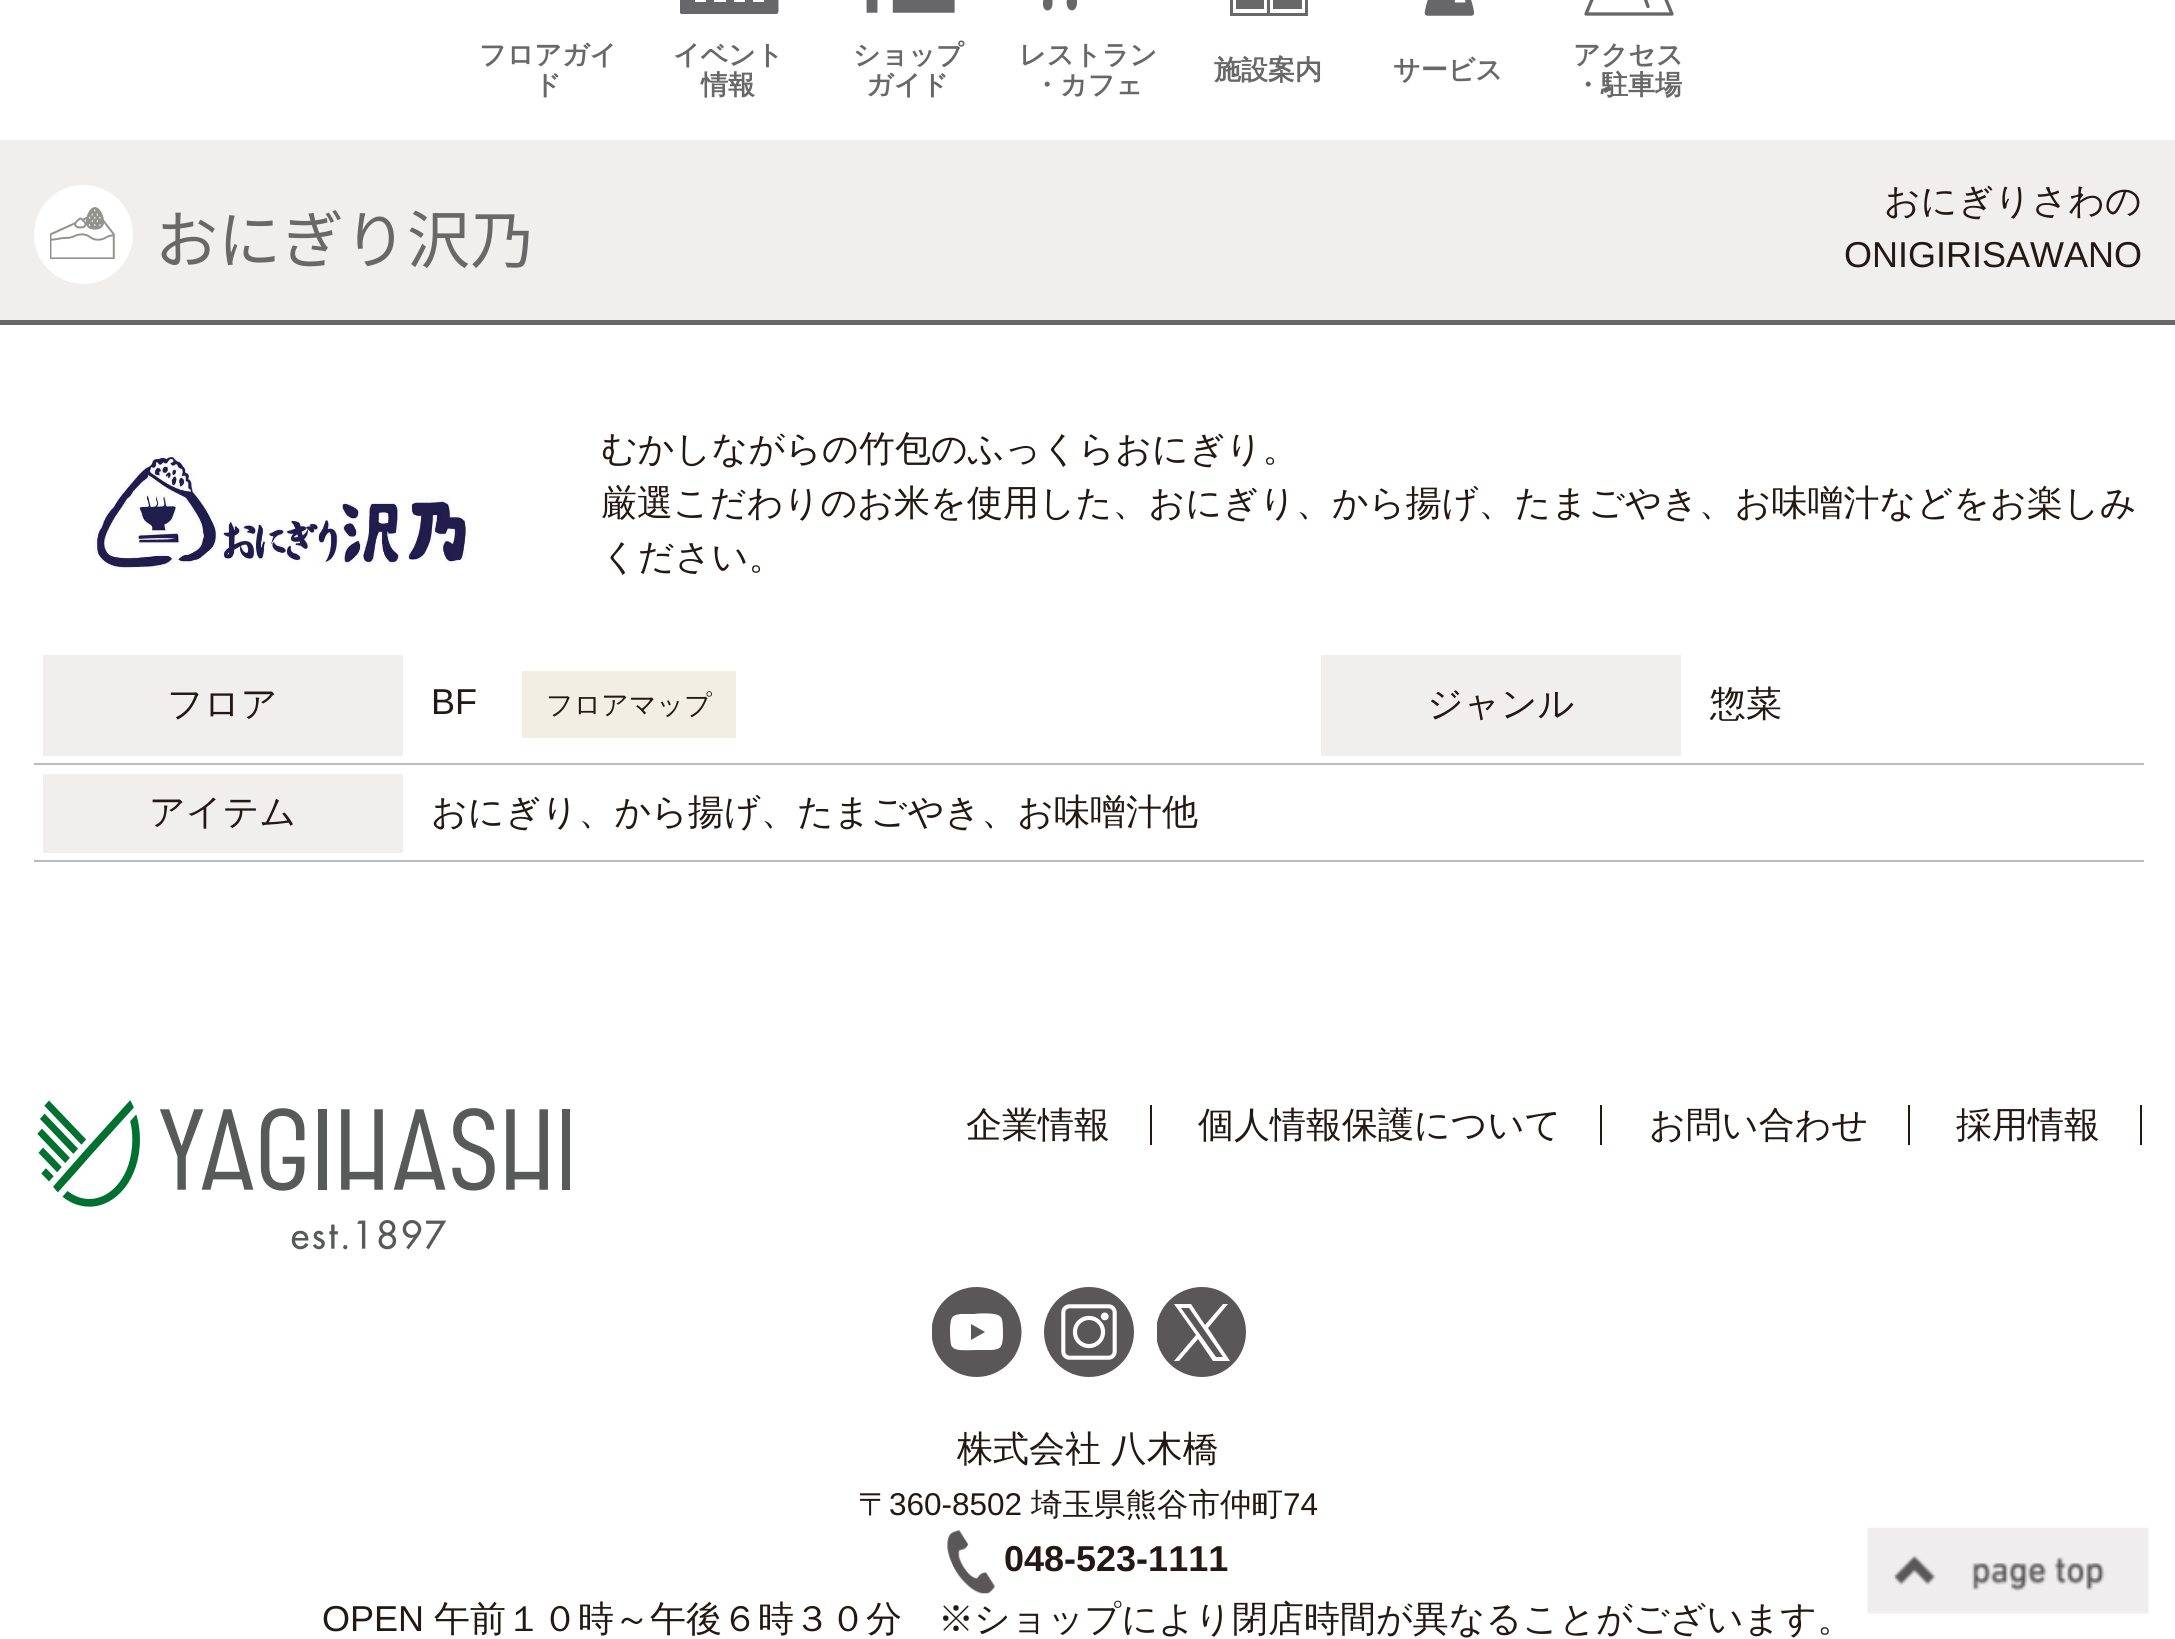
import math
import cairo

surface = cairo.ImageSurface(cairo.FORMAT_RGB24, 2175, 1639)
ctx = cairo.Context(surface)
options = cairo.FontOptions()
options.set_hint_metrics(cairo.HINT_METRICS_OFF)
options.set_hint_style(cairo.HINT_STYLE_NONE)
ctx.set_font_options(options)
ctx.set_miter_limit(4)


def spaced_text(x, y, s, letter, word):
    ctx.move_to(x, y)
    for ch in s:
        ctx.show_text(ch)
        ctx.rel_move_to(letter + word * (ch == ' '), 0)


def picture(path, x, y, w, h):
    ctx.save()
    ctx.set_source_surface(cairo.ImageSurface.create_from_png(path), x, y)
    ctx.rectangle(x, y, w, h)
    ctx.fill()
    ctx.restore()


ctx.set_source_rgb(1, 1, 1)
ctx.paint()
ctx.select_font_face("WenQuanYi Zen Hei", cairo.FONT_SLANT_NORMAL, cairo.FONT_WEIGHT_BOLD)
ctx.set_font_size(27)
ctx.set_source_rgb(0.408, 0.408, 0.412)
ctx.move_to(479, 64)
ctx.show_text("フロアガイ")
ctx.move_to(534, 94)
ctx.show_text("ド")
picture("img1.png", 680, 0, 99, 14)
ctx.move_to(673, 64)
ctx.show_text("イベント")
ctx.move_to(701, 94)
ctx.show_text("情報")
picture("img2.png", 866, 0, 89, 13)
ctx.move_to(853, 64)
ctx.show_text("ショップ")
ctx.move_to(866, 94)
ctx.show_text("ガイド")
picture("img3.png", 1043, 0, 34, 11)
ctx.move_to(1019, 64)
ctx.show_text("レストラン")
ctx.move_to(1033, 94)
ctx.show_text("・カフェ")
ctx.rectangle(1236, 0, 28, 9)
ctx.fill()
ctx.rectangle(1273, 0, 29, 9)
ctx.fill()
ctx.rectangle(1231.5, -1.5, 75, 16)
ctx.set_line_width(3)
ctx.stroke()
ctx.new_path()
ctx.move_to(1268.5, -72.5)
ctx.line_to(1268.5, 14)
ctx.set_line_width(3.1)
ctx.set_line_cap(cairo.LINE_CAP_ROUND)
ctx.set_line_join(cairo.LINE_JOIN_ROUND)
ctx.stroke()
ctx.move_to(1214, 79)
ctx.show_text("施設案内")
picture("img4.png", 1424, 0, 51, 16)
ctx.move_to(1393, 79)
ctx.show_text("サービス")
ctx.new_path()
ctx.move_to(1672, 14)
ctx.line_to(1586, 14)
ctx.line_to(1599.5, -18.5)
ctx.line_to(1658.5, -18.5)
ctx.close_path()
ctx.set_source_rgb(0.404, 0.404, 0.412)
ctx.set_line_width(3.3)
ctx.stroke()
ctx.new_path()
ctx.move_to(1641, -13)
ctx.line_to(1648, 6.5)
ctx.stroke()
ctx.set_source_rgb(0.408, 0.408, 0.412)
ctx.move_to(1573, 64)
ctx.show_text("アクセス")
ctx.move_to(1574, 94)
ctx.show_text("・駐車場")
ctx.set_source_rgb(0.941, 0.937, 0.933)
ctx.rectangle(0, 140, 2175, 180)
ctx.fill()
ctx.set_source_rgb(0.408, 0.404, 0.408)
ctx.rectangle(0, 320, 2175, 5)
ctx.fill()
ctx.set_source_rgb(1, 1, 1)
ctx.arc(83.5, 234.5, 49.5, 0, 2 * math.pi)
ctx.fill()
picture("img5.png", 50, 207, 65, 52)
ctx.select_font_face("Noto Sans JP Thin")
ctx.set_font_size(63)
ctx.set_source_rgb(0.408, 0.408, 0.412)
ctx.move_to(155, 263)
ctx.show_text("おにぎり沢乃")
ctx.select_font_face("WenQuanYi Zen Hei Medium")
ctx.set_font_size(36)
ctx.set_source_rgb(0.137, 0.094, 0.082)
ctx.move_to(1884, 213)
ctx.show_text("おにぎりさわの")
ctx.select_font_face("Liberation Sans")
ctx.move_to(1844, 267)
ctx.show_text("ONIGIRISAWANO")
picture("img6.png", 95, 455, 374, 114)
ctx.select_font_face("WenQuanYi Zen Hei Medium")
ctx.move_to(601, 461)
ctx.show_text("むかしながらの竹包のふっくらおにぎり。")
ctx.move_to(601, 515)
ctx.show_text("厳選こだわりのお米を使用した、おにぎり、から揚げ、たまごやき、お味噌汁などをお楽しみ")
ctx.move_to(601, 569)
ctx.show_text("ください。")
ctx.set_source_rgb(0.733, 0.733, 0.733)
ctx.rectangle(34, 763, 2110, 2)
ctx.fill()
ctx.set_source_rgb(0.941, 0.937, 0.933)
ctx.rectangle(43, 655, 360, 101)
ctx.fill()
ctx.set_source_rgb(0.137, 0.094, 0.082)
ctx.move_to(167, 716)
ctx.show_text("フロア")
ctx.select_font_face("Liberation Sans")
ctx.move_to(431, 714)
ctx.show_text("BF")
ctx.set_source_rgb(0.949, 0.933, 0.894)
ctx.rectangle(522, 671, 214, 67)
ctx.fill()
ctx.select_font_face("WenQuanYi Zen Hei Medium")
ctx.set_font_size(27)
ctx.set_source_rgb(0.137, 0.094, 0.082)
ctx.move_to(546, 714)
ctx.show_text("フロアマップ")
ctx.set_source_rgb(0.941, 0.937, 0.933)
ctx.rectangle(1321, 655, 360, 101)
ctx.fill()
ctx.set_font_size(36)
ctx.set_source_rgb(0.137, 0.094, 0.082)
ctx.move_to(1427, 716)
ctx.show_text("ジャンル")
ctx.move_to(1710, 716)
ctx.show_text("惣菜")
ctx.set_source_rgb(0.733, 0.733, 0.733)
ctx.rectangle(34, 860, 2110, 2)
ctx.fill()
ctx.set_source_rgb(0.941, 0.937, 0.933)
ctx.rectangle(43, 774, 360, 79)
ctx.fill()
ctx.set_source_rgb(0.137, 0.094, 0.082)
ctx.move_to(149, 824)
ctx.show_text("アイテム")
ctx.move_to(431, 824)
ctx.show_text("おにぎり、から揚げ、たまごやき、お味噌汁他")
picture("img7.png", 37, 1100, 533, 150)
ctx.rectangle(1150, 1105, 2, 40)
ctx.fill()
ctx.move_to(966, 1137)
ctx.show_text("企業情報")
ctx.rectangle(1600, 1105, 2, 40)
ctx.fill()
ctx.move_to(1198, 1137)
ctx.show_text("個人情報保護について")
ctx.rectangle(1908, 1105, 2, 40)
ctx.fill()
ctx.move_to(1649, 1137)
ctx.show_text("お問い合わせ")
ctx.rectangle(2140, 1105, 2, 40)
ctx.fill()
ctx.move_to(1956, 1137)
ctx.show_text("採用情報")
ctx.save()
ctx.rectangle(932, 1287, 90, 90)
ctx.clip()
ctx.set_source_rgb(0.349, 0.341, 0.341)
ctx.arc(976.5, 1332, 45, 0, 2 * math.pi)
ctx.fill()
ctx.restore()
ctx.set_source_rgb(1, 1, 1)
ctx.new_path()
ctx.move_to(1002, 1319)
ctx.curve_to(1001, 1317, 1000, 1316, 998, 1315)
ctx.curve_to(993, 1313, 980, 1313, 974, 1314)
ctx.line_to(961, 1314)
ctx.curve_to(951, 1315, 951, 1318, 950, 1327)
ctx.curve_to(950, 1333, 950, 1339, 951, 1345)
ctx.curve_to(952, 1347, 953, 1348, 955, 1349)
ctx.curve_to(960, 1351, 972, 1350, 977, 1350)
ctx.line_to(992, 1350)
ctx.curve_to(1002, 1349, 1002, 1346, 1003, 1337)
ctx.curve_to(1003, 1331, 1003, 1325, 1002, 1319)
ctx.move_to(971, 1340)
ctx.line_to(971, 1324)
ctx.line_to(985, 1332)
ctx.close_path()
ctx.fill()
picture("img8.png", 1044, 1287, 90, 90)
ctx.save()
ctx.rectangle(1157, 1287, 90, 90)
ctx.clip()
ctx.set_source_rgb(0.349, 0.341, 0.341)
ctx.new_path()
ctx.move_to(1246, 1332)
ctx.curve_to(1246, 1357, 1226, 1377, 1202, 1377)
ctx.curve_to(1177, 1377, 1156, 1357, 1156, 1332)
ctx.curve_to(1156, 1307, 1177, 1287, 1202, 1287)
ctx.curve_to(1226, 1287, 1246, 1307, 1246, 1332)
ctx.close_path()
ctx.move_to(1223, 1304)
ctx.line_to(1205, 1325)
ctx.line_to(1191, 1304)
ctx.line_to(1174, 1304)
ctx.line_to(1196, 1335)
ctx.line_to(1174, 1361)
ctx.line_to(1179, 1361)
ctx.line_to(1198, 1339)
ctx.line_to(1213, 1361)
ctx.line_to(1230, 1361)
ctx.line_to(1208, 1328)
ctx.line_to(1228, 1304)
ctx.close_path()
ctx.move_to(1223, 1357)
ctx.line_to(1216, 1357)
ctx.line_to(1181, 1308)
ctx.line_to(1189, 1308)
ctx.close_path()
ctx.fill()
ctx.restore()
ctx.set_source_rgb(0.137, 0.094, 0.082)
spaced_text(957, 1461, "株式会社 八木橋", 0, -1)
ctx.set_font_size(31.5)
ctx.move_to(858, 1515)
ctx.show_text("〒")
ctx.select_font_face("Liberation Sans")
ctx.move_to(889, 1515)
ctx.show_text("360-8502")
ctx.select_font_face("WenQuanYi Zen Hei Medium")
ctx.move_to(1031, 1515)
ctx.show_text("埼玉県熊谷市仲町")
ctx.select_font_face("Liberation Sans")
ctx.move_to(1283, 1515)
ctx.show_text("74")
picture("img9.png", 947, 1530, 48, 64)
ctx.select_font_face("Liberation Sans", cairo.FONT_SLANT_NORMAL, cairo.FONT_WEIGHT_BOLD)
ctx.set_font_size(36)
ctx.move_to(1004, 1571)
ctx.show_text("048-523-1111")
ctx.select_font_face("Liberation Sans")
ctx.move_to(322, 1631)
ctx.show_text("OPEN")
ctx.select_font_face("WenQuanYi Zen Hei Medium")
ctx.move_to(434, 1631)
ctx.show_text("午前１０時～午後６時３０分　※ショップにより閉店時間が異なることがございます。")
picture("img10.png", 1867, 1527, 282, 87)
surface.write_to_png("page.png")
